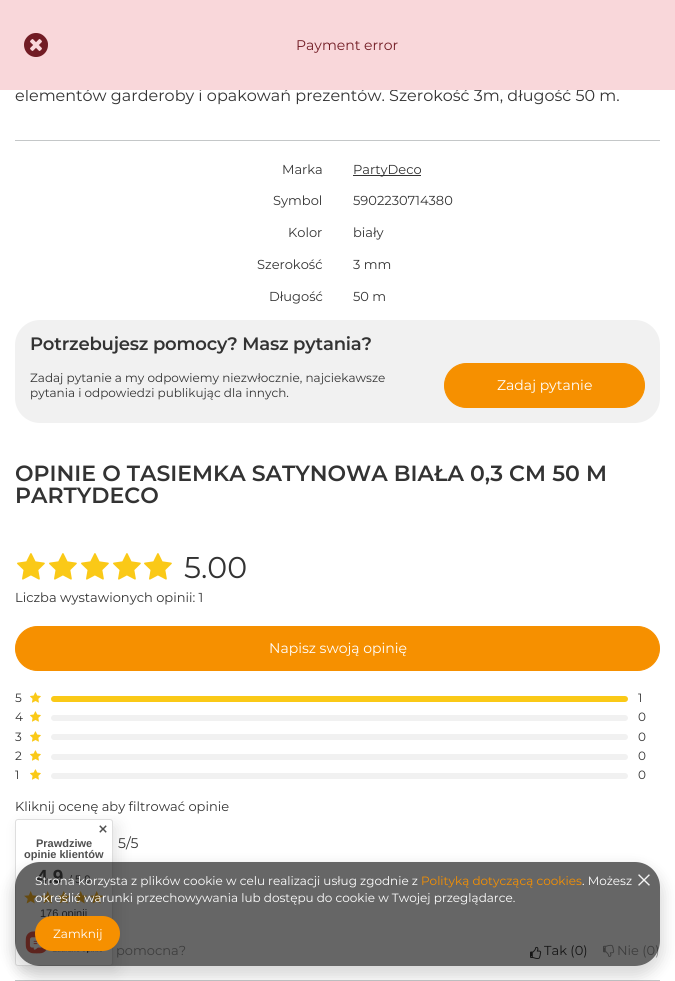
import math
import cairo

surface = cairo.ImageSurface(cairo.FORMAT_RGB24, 675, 981)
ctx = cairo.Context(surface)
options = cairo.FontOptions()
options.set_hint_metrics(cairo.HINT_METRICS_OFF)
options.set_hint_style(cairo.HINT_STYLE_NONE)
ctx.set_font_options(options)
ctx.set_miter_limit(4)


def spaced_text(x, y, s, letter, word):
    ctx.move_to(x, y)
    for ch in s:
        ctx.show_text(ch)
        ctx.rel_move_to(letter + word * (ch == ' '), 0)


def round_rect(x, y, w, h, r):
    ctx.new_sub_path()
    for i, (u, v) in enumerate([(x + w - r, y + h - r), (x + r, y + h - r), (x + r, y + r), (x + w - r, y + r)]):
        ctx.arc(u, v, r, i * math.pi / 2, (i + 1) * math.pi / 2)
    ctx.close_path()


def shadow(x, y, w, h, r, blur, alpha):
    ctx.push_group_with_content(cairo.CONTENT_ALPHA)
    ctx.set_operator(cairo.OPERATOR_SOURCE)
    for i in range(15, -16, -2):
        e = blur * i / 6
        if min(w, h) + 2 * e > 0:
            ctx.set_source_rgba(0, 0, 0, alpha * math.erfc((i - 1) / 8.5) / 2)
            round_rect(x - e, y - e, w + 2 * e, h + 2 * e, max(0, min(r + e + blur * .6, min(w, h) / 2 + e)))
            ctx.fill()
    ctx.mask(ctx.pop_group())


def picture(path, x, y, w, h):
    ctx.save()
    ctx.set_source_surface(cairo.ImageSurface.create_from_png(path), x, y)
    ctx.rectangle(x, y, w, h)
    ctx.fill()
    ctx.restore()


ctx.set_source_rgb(1, 1, 1)
ctx.paint()
ctx.select_font_face("Montserrat")
ctx.set_font_size(16)
ctx.set_source_rgb(0.2, 0.2, 0.2)
ctx.move_to(15, 101)
ctx.show_text("elementów garderoby i opakowań prezentów. Szerokość 3m, długość 50 m.")
ctx.set_source_rgb(0.973, 0.843, 0.855)
ctx.rectangle(0, 0, 675, 90)
ctx.fill()
picture("img1.png", 24, 33, 24, 24)
ctx.select_font_face("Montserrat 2")
ctx.set_font_size(14)
ctx.set_source_rgb(0.447, 0.11, 0.141)
ctx.move_to(296, 50)
ctx.show_text("Payment error")
ctx.set_source_rgb(0.769, 0.78, 0.784)
ctx.rectangle(15, 140, 645, 1)
ctx.fill()
ctx.set_font_size(13)
ctx.set_source_rgb(0.2, 0.2, 0.2)
ctx.move_to(282, 174)
ctx.show_text("Marka")
ctx.rectangle(353, 175, 68, 1)
ctx.fill()
ctx.move_to(353, 174)
ctx.show_text("PartyDeco")
ctx.move_to(273, 205)
ctx.show_text("Symbol")
ctx.move_to(353, 205)
ctx.show_text("5902230714380")
ctx.move_to(288, 237)
ctx.show_text("Kolor")
ctx.move_to(353, 237)
ctx.show_text("biały")
ctx.move_to(257, 269)
ctx.show_text("Szerokość")
ctx.move_to(353, 269)
ctx.show_text("3 mm")
ctx.move_to(269, 301)
ctx.show_text("Długość")
ctx.move_to(353, 301)
ctx.show_text("50 m")
ctx.set_source_rgb(0.945, 0.945, 0.945)
round_rect(15, 320, 645, 103, 25)
ctx.fill()
ctx.select_font_face("Montserrat SemiBold")
ctx.set_font_size(18)
ctx.set_source_rgb(0.2, 0.2, 0.2)
spaced_text(30, 350, "Potrzebujesz pomocy? Masz pytania?", -0.2, 0)
ctx.select_font_face("Montserrat 2")
ctx.set_font_size(12)
ctx.move_to(30, 382)
ctx.show_text("Zadaj pytanie a my odpowiemy niezwłocznie, najciekawsze")
ctx.move_to(30, 397)
ctx.show_text("pytania i odpowiedzi publikując dla innych.")
ctx.set_source_rgb(0.961, 0.565, 0)
round_rect(444.5, 363.5, 200, 44, 22)
ctx.fill_preserve()
ctx.set_line_width(1)
ctx.stroke()
ctx.set_font_size(14)
ctx.set_source_rgb(1, 1, 1)
ctx.move_to(497, 390)
ctx.show_text("Zadaj pytanie")
ctx.select_font_face("Montserrat SemiBold")
ctx.set_font_size(22)
ctx.set_source_rgb(0.2, 0.2, 0.2)
ctx.move_to(15, 481)
ctx.show_text("OPINIE O TASIEMKA SATYNOWA BIAŁA 0,3 CM 50 M")
ctx.move_to(15, 503)
ctx.show_text("PARTYDECO")
picture("img2.png", 17, 553, 28, 27)
picture("img2.png", 49, 553, 28, 27)
picture("img2.png", 81, 553, 28, 27)
picture("img2.png", 113, 553, 28, 27)
picture("img2.png", 144, 553, 28, 27)
ctx.select_font_face("Montserrat 2")
ctx.set_font_size(30)
ctx.move_to(184, 578)
ctx.show_text("5.00")
ctx.set_font_size(13)
ctx.move_to(15, 602)
ctx.show_text("Liczba wystawionych opinii: 1")
ctx.set_source_rgb(0.961, 0.565, 0)
round_rect(15.5, 626.5, 644, 44, 22)
ctx.fill_preserve()
ctx.stroke()
ctx.set_font_size(14)
ctx.set_source_rgb(1, 1, 1)
ctx.move_to(269, 653)
ctx.show_text("Napisz swoją opinię")
ctx.set_font_size(12)
ctx.set_source_rgb(0.2, 0.2, 0.2)
ctx.move_to(15, 702)
ctx.show_text("5")
picture("img3.png", 30, 692, 11, 11)
ctx.set_source_rgb(0.98, 0.788, 0.09)
round_rect(51, 696, 577, 6, 3)
ctx.fill()
ctx.set_source_rgb(0.2, 0.2, 0.2)
ctx.move_to(638, 702)
ctx.show_text("1")
ctx.move_to(15, 721)
ctx.show_text("4")
picture("img3.png", 30, 711, 11, 11)
ctx.set_source_rgb(0.945, 0.945, 0.945)
round_rect(51, 715, 577, 6, 3)
ctx.fill()
ctx.set_source_rgb(0.2, 0.2, 0.2)
ctx.move_to(638, 721)
ctx.show_text("0")
ctx.move_to(15, 741)
ctx.show_text("3")
picture("img3.png", 30, 731, 11, 11)
ctx.set_source_rgb(0.945, 0.945, 0.945)
round_rect(51, 734, 577, 6, 3)
ctx.fill()
ctx.set_source_rgb(0.2, 0.2, 0.2)
ctx.move_to(638, 741)
ctx.show_text("0")
ctx.move_to(15, 760)
ctx.show_text("2")
picture("img3.png", 30, 750, 11, 11)
ctx.set_source_rgb(0.945, 0.945, 0.945)
round_rect(51, 754, 577, 6, 3)
ctx.fill()
ctx.set_source_rgb(0.2, 0.2, 0.2)
ctx.move_to(638, 760)
ctx.show_text("0")
ctx.move_to(15, 779)
ctx.show_text("1")
picture("img3.png", 30, 769, 11, 11)
ctx.set_source_rgb(0.945, 0.945, 0.945)
round_rect(51, 773, 577, 6, 3)
ctx.fill()
ctx.set_source_rgb(0.2, 0.2, 0.2)
ctx.move_to(638, 779)
ctx.show_text("0")
ctx.set_font_size(13)
ctx.move_to(15, 811)
ctx.show_text("Kliknij ocenę aby filtrować opinie")
ctx.set_source_rgb(0.769, 0.78, 0.784)
ctx.rectangle(15, 980, 645, 1)
ctx.fill()
ctx.set_font_size(14)
ctx.set_source_rgb(0.2, 0.2, 0.2)
ctx.move_to(118, 848)
ctx.show_text("5/5")
ctx.set_font_size(13)
ctx.set_source_rgb(0.6, 0.6, 0.6)
ctx.move_to(116, 955)
ctx.show_text("pomocna?")
picture("img4.png", 530, 946, 12, 13)
ctx.set_source_rgb(0.2, 0.2, 0.2)
ctx.move_to(544, 955)
ctx.show_text("Tak (0)")
picture("img5.png", 603, 944, 12, 13)
ctx.set_source_rgb(0.6, 0.6, 0.6)
ctx.move_to(617, 955)
ctx.show_text("Nie (0)")
ctx.set_source_rgb(0, 0, 0)
shadow(20, 824, 98, 147, 3, 7.5, 0.1)
ctx.set_source_rgb(1, 1, 1)
round_rect(15.5, 819.5, 97, 146, 2.5)
ctx.fill_preserve()
ctx.set_source_rgb(0.871, 0.871, 0.871)
ctx.stroke()
picture("img6.png", 99, 825, 8, 8)
ctx.select_font_face("Liberation Sans", cairo.FONT_SLANT_NORMAL, cairo.FONT_WEIGHT_BOLD)
ctx.set_font_size(11)
ctx.set_source_rgb(0.31, 0.31, 0.31)
ctx.move_to(36, 847)
ctx.show_text("Prawdziwe")
ctx.move_to(24, 858)
ctx.show_text("opinie klientów")
ctx.set_font_size(19)
ctx.move_to(37, 883)
ctx.show_text("4.9")
ctx.select_font_face("Liberation Sans")
ctx.set_font_size(11)
ctx.move_to(69, 883)
ctx.show_text("/ 5.0")
picture("img7.png", 24, 891, 14, 13)
picture("img8.png", 41, 891, 13, 13)
picture("img7.png", 57, 891, 14, 13)
picture("img8.png", 74, 891, 13, 13)
picture("img7.png", 90, 891, 14, 13)
ctx.move_to(40, 917)
ctx.show_text("176 opinii")
picture("img9.png", 25, 931, 77, 23)
ctx.save()
ctx.set_fill_rule(cairo.FILL_RULE_EVEN_ODD)
ctx.new_path()
ctx.move_to(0, 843)
ctx.line_to(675, 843)
ctx.line_to(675, 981)
ctx.line_to(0, 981)
ctx.close_path()
ctx.move_to(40, 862)
ctx.line_to(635, 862)
ctx.curve_to(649, 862, 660, 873, 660, 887)
ctx.line_to(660, 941)
ctx.curve_to(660, 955, 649, 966, 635, 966)
ctx.line_to(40, 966)
ctx.curve_to(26, 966, 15, 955, 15, 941)
ctx.line_to(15, 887)
ctx.curve_to(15, 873, 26, 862, 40, 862)
ctx.close_path()
ctx.clip()
ctx.set_source_rgb(0, 0, 0)
shadow(12, 867, 651, 110, 28, 7.5, 0.15)
ctx.restore()
ctx.set_source_rgba(0, 0, 0, 0.6)
round_rect(15, 862, 645, 104, 25)
ctx.fill()
ctx.select_font_face("Montserrat 2")
ctx.set_font_size(12)
ctx.set_source_rgb(1, 1, 1)
ctx.move_to(35, 885)
ctx.show_text("Strona korzysta z plików cookie w celu realizacji usług zgodnie z")
ctx.set_source_rgb(0.961, 0.565, 0)
ctx.move_to(421, 885)
ctx.show_text("Polityką dotyczącą cookies")
ctx.set_source_rgb(1, 1, 1)
ctx.move_to(582, 885)
ctx.show_text(". Możesz")
ctx.move_to(35, 902)
ctx.show_text("określić warunki przechowywania lub dostępu do cookie w Twojej przeglądarce.")
ctx.set_source_rgb(0.961, 0.565, 0)
round_rect(35, 916, 85, 35, 17.5)
ctx.fill()
ctx.set_source_rgb(1, 1, 1)
ctx.move_to(53, 938)
ctx.show_text("Zamknij")
picture("img10.png", 638, 874, 12, 12)
surface.write_to_png("page.png")
